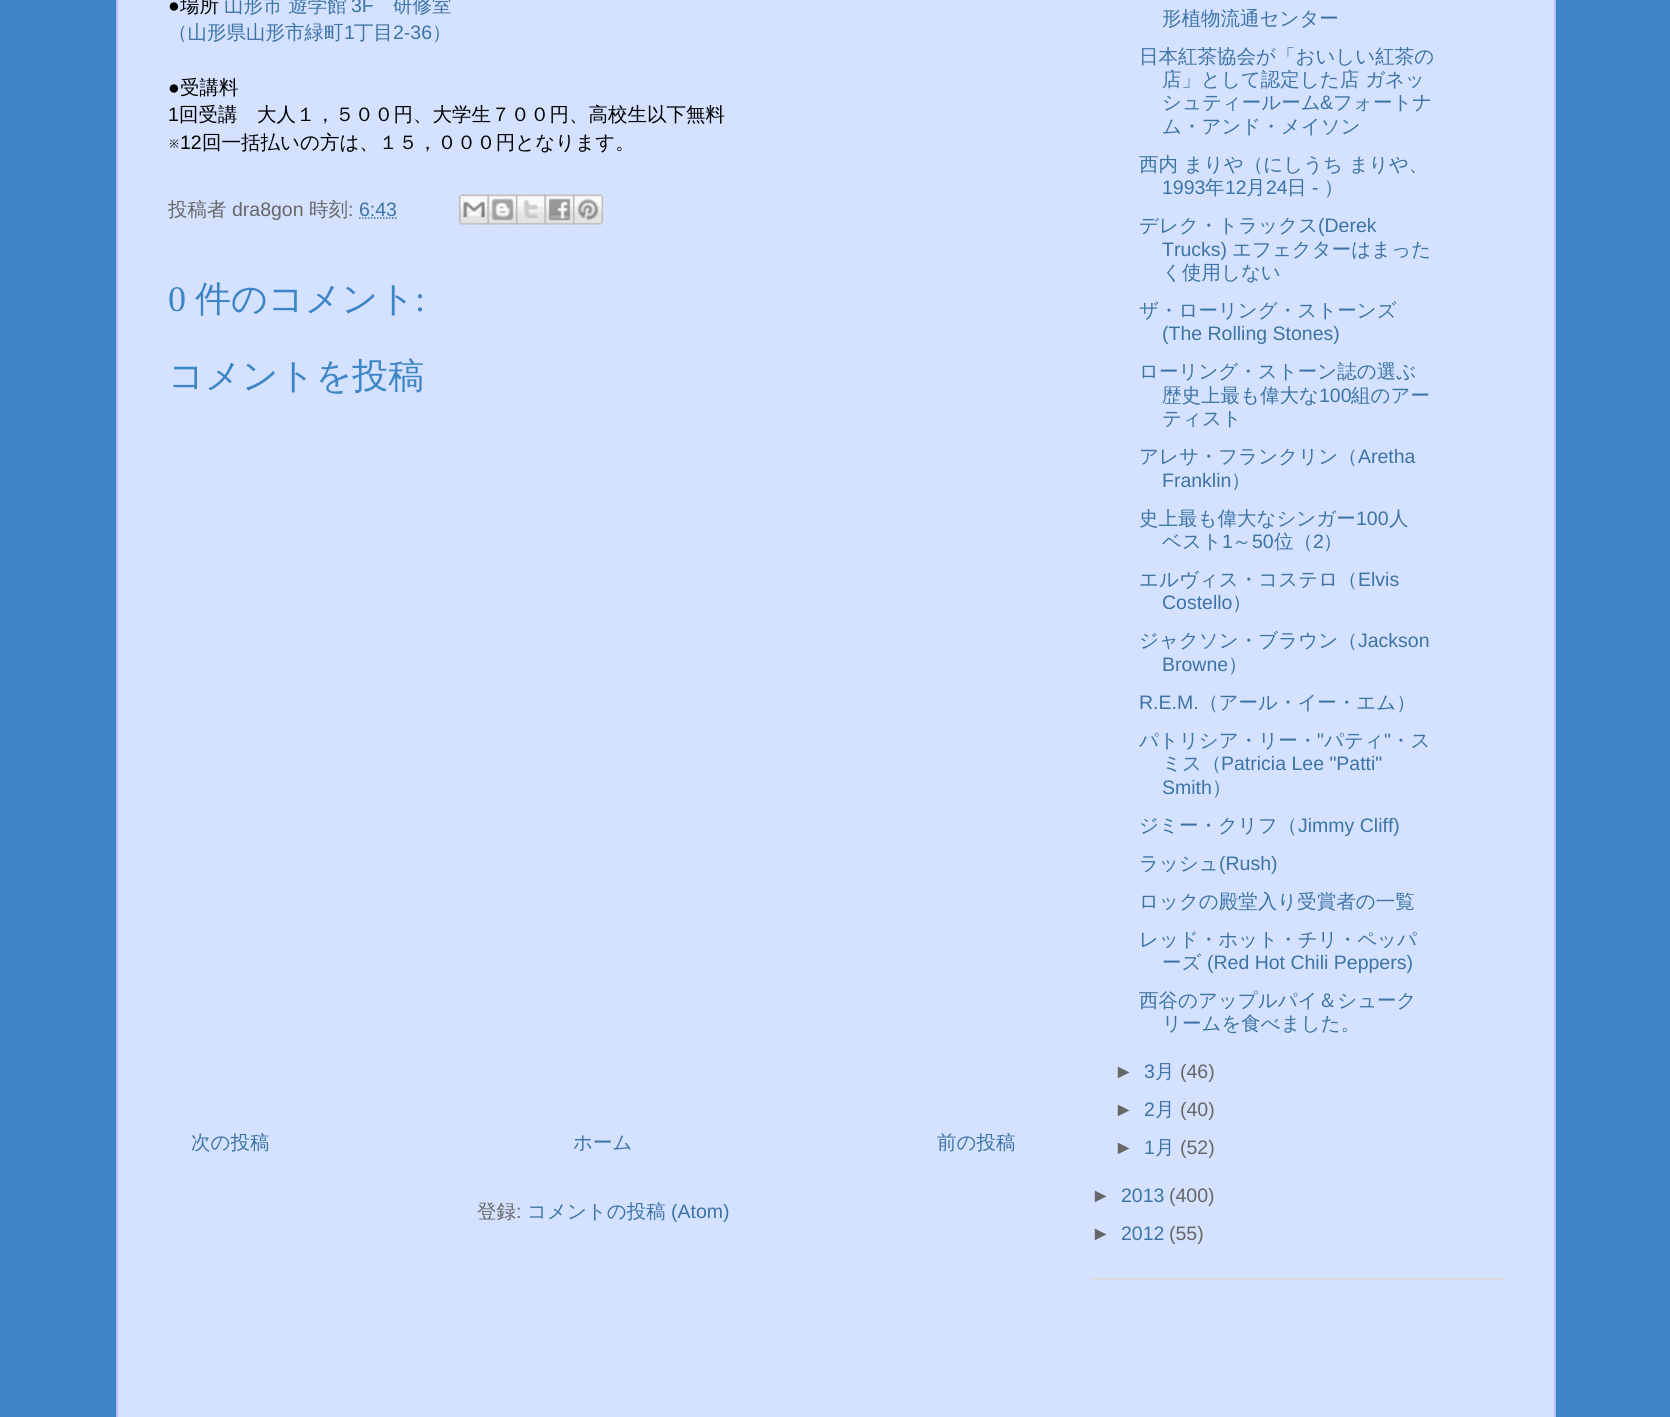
import math
import cairo

surface = cairo.ImageSurface(cairo.FORMAT_RGB24, 1670, 1417)
ctx = cairo.Context(surface)
options = cairo.FontOptions()
options.set_hint_metrics(cairo.HINT_METRICS_OFF)
options.set_hint_style(cairo.HINT_STYLE_NONE)
ctx.set_font_options(options)
ctx.set_miter_limit(4)


def picture(path, x, y, w, h):
    ctx.save()
    ctx.set_source_surface(cairo.ImageSurface.create_from_png(path), x, y)
    ctx.rectangle(x, y, w, h)
    ctx.fill()
    ctx.restore()


ctx.set_source_rgb(0.239, 0.522, 0.776)
ctx.paint()
ctx.set_source_rgb(0.831, 0.882, 1)
ctx.rectangle(118, 0, 1436, 1417)
ctx.fill()
ctx.set_source_rgb(0.733, 0.733, 1)
ctx.rectangle(1554, 0, 2, 1417)
ctx.fill()
ctx.rectangle(116, 0, 2, 1417)
ctx.fill()
ctx.select_font_face("Liberation Sans")
ctx.set_font_size(19.5)
ctx.set_source_rgb(0, 0, 0)
ctx.move_to(168, 12)
ctx.show_text("●")
ctx.select_font_face("WenQuanYi Zen Hei Medium")
ctx.move_to(180, 12)
ctx.show_text("場所")
ctx.set_source_rgb(0.239, 0.455, 0.647)
ctx.move_to(224, 12)
ctx.show_text("山形市 遊学館")
ctx.select_font_face("Liberation Sans")
ctx.move_to(351, 12)
ctx.show_text("3F")
ctx.select_font_face("WenQuanYi Zen Hei Medium")
ctx.move_to(393, 12)
ctx.show_text("研修室")
ctx.move_to(168, 39)
ctx.show_text("（山形県山形市緑町")
ctx.select_font_face("Liberation Sans")
ctx.move_to(344, 39)
ctx.show_text("1")
ctx.select_font_face("WenQuanYi Zen Hei Medium")
ctx.move_to(354, 39)
ctx.show_text("丁目")
ctx.select_font_face("Liberation Sans")
ctx.move_to(393, 39)
ctx.show_text("2-36")
ctx.select_font_face("WenQuanYi Zen Hei Medium")
ctx.move_to(432, 39)
ctx.show_text("）")
ctx.select_font_face("Liberation Sans")
ctx.set_source_rgb(0, 0, 0)
ctx.move_to(168, 94)
ctx.show_text("●")
ctx.select_font_face("WenQuanYi Zen Hei Medium")
ctx.move_to(180, 94)
ctx.show_text("受講料")
ctx.select_font_face("Liberation Sans")
ctx.move_to(168, 121)
ctx.show_text("1")
ctx.select_font_face("WenQuanYi Zen Hei Medium")
ctx.move_to(179, 121)
ctx.show_text("回受講")
ctx.move_to(257, 121)
ctx.show_text("大人１，５００円、大学生７００円、高校生以下無料")
ctx.select_font_face("FreeSans")
ctx.move_to(168, 149)
ctx.show_text("※")
ctx.select_font_face("Liberation Sans")
ctx.move_to(180, 149)
ctx.show_text("12")
ctx.select_font_face("WenQuanYi Zen Hei Medium")
ctx.move_to(202, 149)
ctx.show_text("回一括払いの方は、１５，０００円となります。")
ctx.set_source_rgb(0.4, 0.4, 0.4)
ctx.move_to(168, 216)
ctx.show_text("投稿者")
ctx.select_font_face("Liberation Sans")
ctx.move_to(232, 216)
ctx.show_text("dra8gon")
ctx.select_font_face("WenQuanYi Zen Hei Medium")
ctx.move_to(309, 216)
ctx.show_text("時刻")
ctx.select_font_face("Liberation Sans")
ctx.move_to(348, 216)
ctx.show_text(":")
ctx.set_source_rgb(0.239, 0.455, 0.647)
ctx.move_to(359, 216)
ctx.show_text("6:43")
ctx.new_path()
ctx.move_to(359, 218)
ctx.line_to(397, 218)
ctx.set_line_width(1.5)
ctx.set_dash([1.5, 1.5])
ctx.stroke()
picture("img1.png", 459, 194, 30, 31)
picture("img2.png", 487, 194, 31, 31)
picture("img3.png", 516, 194, 30, 31)
picture("img4.png", 544, 194, 31, 31)
picture("img5.png", 573, 194, 30, 31)
ctx.select_font_face("Liberation Serif")
ctx.set_font_size(36)
ctx.set_source_rgb(0.239, 0.522, 0.776)
ctx.move_to(168, 311)
ctx.show_text("0")
ctx.select_font_face("WenQuanYi Zen Hei Medium")
ctx.move_to(195, 311)
ctx.show_text("件のコメント")
ctx.select_font_face("Liberation Serif")
ctx.move_to(415, 311)
ctx.show_text(":")
ctx.select_font_face("WenQuanYi Zen Hei Medium")
ctx.move_to(168, 388)
ctx.show_text("コメントを投稿")
ctx.set_font_size(19.5)
ctx.set_source_rgb(0.239, 0.455, 0.647)
ctx.move_to(191, 1149)
ctx.show_text("次の投稿")
ctx.move_to(573, 1149)
ctx.show_text("ホーム")
ctx.move_to(937, 1149)
ctx.show_text("前の投稿")
ctx.set_source_rgb(0.4, 0.4, 0.4)
ctx.move_to(477, 1218)
ctx.show_text("登録")
ctx.select_font_face("Liberation Sans")
ctx.move_to(516, 1218)
ctx.show_text(":")
ctx.select_font_face("WenQuanYi Zen Hei Medium")
ctx.set_source_rgb(0.239, 0.455, 0.647)
ctx.move_to(527, 1218)
ctx.show_text("コメントの投稿")
ctx.select_font_face("Liberation Sans")
ctx.move_to(671, 1218)
ctx.show_text("(Atom)")
ctx.set_source_rgb(0.859, 0.859, 0.859)
ctx.rectangle(1091, 1278, 412, 2)
ctx.fill()
ctx.select_font_face("WenQuanYi Zen Hei Medium")
ctx.set_source_rgb(0.239, 0.455, 0.647)
ctx.move_to(1162, 25)
ctx.show_text("形植物流通センター")
ctx.move_to(1139, 63)
ctx.show_text("日本紅茶協会が「おいしい紅茶の")
ctx.move_to(1162, 86)
ctx.show_text("店」として認定した店 ガネッ")
ctx.move_to(1162, 109)
ctx.show_text("シュティールーム")
ctx.select_font_face("Liberation Sans")
ctx.move_to(1320, 109)
ctx.show_text("&")
ctx.select_font_face("WenQuanYi Zen Hei Medium")
ctx.move_to(1333, 109)
ctx.show_text("フォートナ")
ctx.move_to(1162, 133)
ctx.show_text("ム・アンド・メイソン")
ctx.move_to(1139, 171)
ctx.show_text("西内 まりや（にしうち まりや、")
ctx.select_font_face("Liberation Sans")
ctx.move_to(1162, 194)
ctx.show_text("1993")
ctx.select_font_face("WenQuanYi Zen Hei Medium")
ctx.move_to(1205, 194)
ctx.show_text("年")
ctx.select_font_face("Liberation Sans")
ctx.move_to(1225, 194)
ctx.show_text("12")
ctx.select_font_face("WenQuanYi Zen Hei Medium")
ctx.move_to(1246, 194)
ctx.show_text("月")
ctx.select_font_face("Liberation Sans")
ctx.move_to(1266, 194)
ctx.show_text("24")
ctx.select_font_face("WenQuanYi Zen Hei Medium")
ctx.move_to(1287, 194)
ctx.show_text("日")
ctx.select_font_face("Liberation Sans")
ctx.move_to(1312, 194)
ctx.show_text("-")
ctx.select_font_face("WenQuanYi Zen Hei Medium")
ctx.move_to(1324, 194)
ctx.show_text("）")
ctx.move_to(1139, 232)
ctx.show_text("デレク・トラックス")
ctx.select_font_face("Liberation Sans")
ctx.move_to(1318, 232)
ctx.show_text("(Derek")
ctx.move_to(1162, 256)
ctx.show_text("Trucks)")
ctx.select_font_face("WenQuanYi Zen Hei Medium")
ctx.move_to(1232, 256)
ctx.show_text("エフェクターはまった")
ctx.move_to(1162, 279)
ctx.show_text("く使用しない")
ctx.move_to(1139, 317)
ctx.show_text("ザ・ローリング・ストーンズ")
ctx.select_font_face("Liberation Sans")
ctx.move_to(1162, 340)
ctx.show_text("(The Rolling Stones)")
ctx.select_font_face("WenQuanYi Zen Hei Medium")
ctx.move_to(1139, 378)
ctx.show_text("ローリング・ストーン誌の選ぶ")
ctx.move_to(1162, 402)
ctx.show_text("歴史上最も偉大な")
ctx.select_font_face("Liberation Sans")
ctx.move_to(1319, 402)
ctx.show_text("100")
ctx.select_font_face("WenQuanYi Zen Hei Medium")
ctx.move_to(1351, 402)
ctx.show_text("組のアー")
ctx.move_to(1162, 425)
ctx.show_text("ティスト")
ctx.move_to(1139, 463)
ctx.show_text("アレサ・フランクリン（")
ctx.select_font_face("Liberation Sans")
ctx.move_to(1358, 463)
ctx.show_text("Aretha")
ctx.move_to(1162, 487)
ctx.show_text("Franklin")
ctx.select_font_face("WenQuanYi Zen Hei Medium")
ctx.move_to(1231, 487)
ctx.show_text("）")
ctx.move_to(1139, 525)
ctx.show_text("史上最も偉大なシンガー")
ctx.select_font_face("Liberation Sans")
ctx.move_to(1356, 525)
ctx.show_text("100")
ctx.select_font_face("WenQuanYi Zen Hei Medium")
ctx.move_to(1389, 525)
ctx.show_text("人")
ctx.move_to(1162, 548)
ctx.show_text("ベスト")
ctx.select_font_face("Liberation Sans")
ctx.move_to(1222, 548)
ctx.show_text("1")
ctx.select_font_face("WenQuanYi Zen Hei Medium")
ctx.move_to(1232, 548)
ctx.show_text("～")
ctx.select_font_face("Liberation Sans")
ctx.move_to(1252, 548)
ctx.show_text("50")
ctx.select_font_face("WenQuanYi Zen Hei Medium")
ctx.move_to(1274, 548)
ctx.show_text("位（")
ctx.select_font_face("Liberation Sans")
ctx.move_to(1313, 548)
ctx.show_text("2")
ctx.select_font_face("WenQuanYi Zen Hei Medium")
ctx.move_to(1323, 548)
ctx.show_text("）")
ctx.move_to(1139, 586)
ctx.show_text("エルヴィス・コステロ（")
ctx.select_font_face("Liberation Sans")
ctx.move_to(1358, 586)
ctx.show_text("Elvis")
ctx.move_to(1162, 609)
ctx.show_text("Costello")
ctx.select_font_face("WenQuanYi Zen Hei Medium")
ctx.move_to(1232, 609)
ctx.show_text("）")
ctx.move_to(1139, 647)
ctx.show_text("ジャクソン・ブラウン（")
ctx.select_font_face("Liberation Sans")
ctx.move_to(1358, 647)
ctx.show_text("Jackson")
ctx.move_to(1162, 671)
ctx.show_text("Browne")
ctx.select_font_face("WenQuanYi Zen Hei Medium")
ctx.move_to(1228, 671)
ctx.show_text("）")
ctx.select_font_face("Liberation Sans")
ctx.move_to(1139, 709)
ctx.show_text("R.E.M.")
ctx.select_font_face("WenQuanYi Zen Hei Medium")
ctx.move_to(1199, 709)
ctx.show_text("（アール・イー・エム）")
ctx.move_to(1139, 747)
ctx.show_text("パトリシア・リー・")
ctx.select_font_face("Liberation Sans")
ctx.move_to(1317, 747)
ctx.show_text("\"")
ctx.select_font_face("WenQuanYi Zen Hei Medium")
ctx.move_to(1324, 747)
ctx.show_text("パティ")
ctx.select_font_face("Liberation Sans")
ctx.move_to(1384, 747)
ctx.show_text("\"")
ctx.select_font_face("WenQuanYi Zen Hei Medium")
ctx.move_to(1391, 747)
ctx.show_text("・ス")
ctx.move_to(1162, 770)
ctx.show_text("ミス（")
ctx.select_font_face("Liberation Sans")
ctx.move_to(1221, 770)
ctx.show_text("Patricia Lee \"Patti\"")
ctx.move_to(1162, 794)
ctx.show_text("Smith")
ctx.select_font_face("WenQuanYi Zen Hei Medium")
ctx.move_to(1212, 794)
ctx.show_text("）")
ctx.move_to(1139, 832)
ctx.show_text("ジミー・クリフ（")
ctx.select_font_face("Liberation Sans")
ctx.move_to(1298, 832)
ctx.show_text("Jimmy Cliff)")
ctx.select_font_face("WenQuanYi Zen Hei Medium")
ctx.move_to(1139, 870)
ctx.show_text("ラッシュ")
ctx.select_font_face("Liberation Sans")
ctx.move_to(1219, 870)
ctx.show_text("(Rush)")
ctx.select_font_face("WenQuanYi Zen Hei Medium")
ctx.move_to(1139, 908)
ctx.show_text("ロックの殿堂入り受賞者の一覧")
ctx.move_to(1139, 946)
ctx.show_text("レッド・ホット・チリ・ペッパ")
ctx.move_to(1162, 969)
ctx.show_text("ーズ")
ctx.select_font_face("Liberation Sans")
ctx.move_to(1207, 969)
ctx.show_text("(Red Hot Chili Peppers)")
ctx.select_font_face("WenQuanYi Zen Hei Medium")
ctx.move_to(1139, 1007)
ctx.show_text("西谷のアップルパイ＆シューク")
ctx.move_to(1162, 1030)
ctx.show_text("リームを食べました。")
ctx.select_font_face("Liberation Sans")
ctx.set_source_rgb(0.4, 0.4, 0.4)
ctx.move_to(1114, 1078)
ctx.show_text("►")
ctx.set_source_rgb(0.239, 0.455, 0.647)
ctx.move_to(1144, 1078)
ctx.show_text("3")
ctx.select_font_face("WenQuanYi Zen Hei Medium")
ctx.move_to(1155, 1078)
ctx.show_text("月")
ctx.select_font_face("Liberation Sans")
ctx.set_source_rgb(0.4, 0.4, 0.4)
ctx.move_to(1180, 1078)
ctx.show_text("(46)")
ctx.move_to(1114, 1116)
ctx.show_text("►")
ctx.set_source_rgb(0.239, 0.455, 0.647)
ctx.move_to(1144, 1116)
ctx.show_text("2")
ctx.select_font_face("WenQuanYi Zen Hei Medium")
ctx.move_to(1155, 1116)
ctx.show_text("月")
ctx.select_font_face("Liberation Sans")
ctx.set_source_rgb(0.4, 0.4, 0.4)
ctx.move_to(1180, 1116)
ctx.show_text("(40)")
ctx.move_to(1114, 1154)
ctx.show_text("►")
ctx.set_source_rgb(0.239, 0.455, 0.647)
ctx.move_to(1144, 1154)
ctx.show_text("1")
ctx.select_font_face("WenQuanYi Zen Hei Medium")
ctx.move_to(1155, 1154)
ctx.show_text("月")
ctx.select_font_face("Liberation Sans")
ctx.set_source_rgb(0.4, 0.4, 0.4)
ctx.move_to(1180, 1154)
ctx.show_text("(52)")
ctx.move_to(1091, 1202)
ctx.show_text("►")
ctx.set_source_rgb(0.239, 0.455, 0.647)
ctx.move_to(1121, 1202)
ctx.show_text("2013")
ctx.set_source_rgb(0.4, 0.4, 0.4)
ctx.move_to(1169, 1202)
ctx.show_text("(400)")
ctx.move_to(1091, 1240)
ctx.show_text("►")
ctx.set_source_rgb(0.239, 0.455, 0.647)
ctx.move_to(1121, 1240)
ctx.show_text("2012")
ctx.set_source_rgb(0.4, 0.4, 0.4)
ctx.move_to(1169, 1240)
ctx.show_text("(55)")
surface.write_to_png("page.png")
